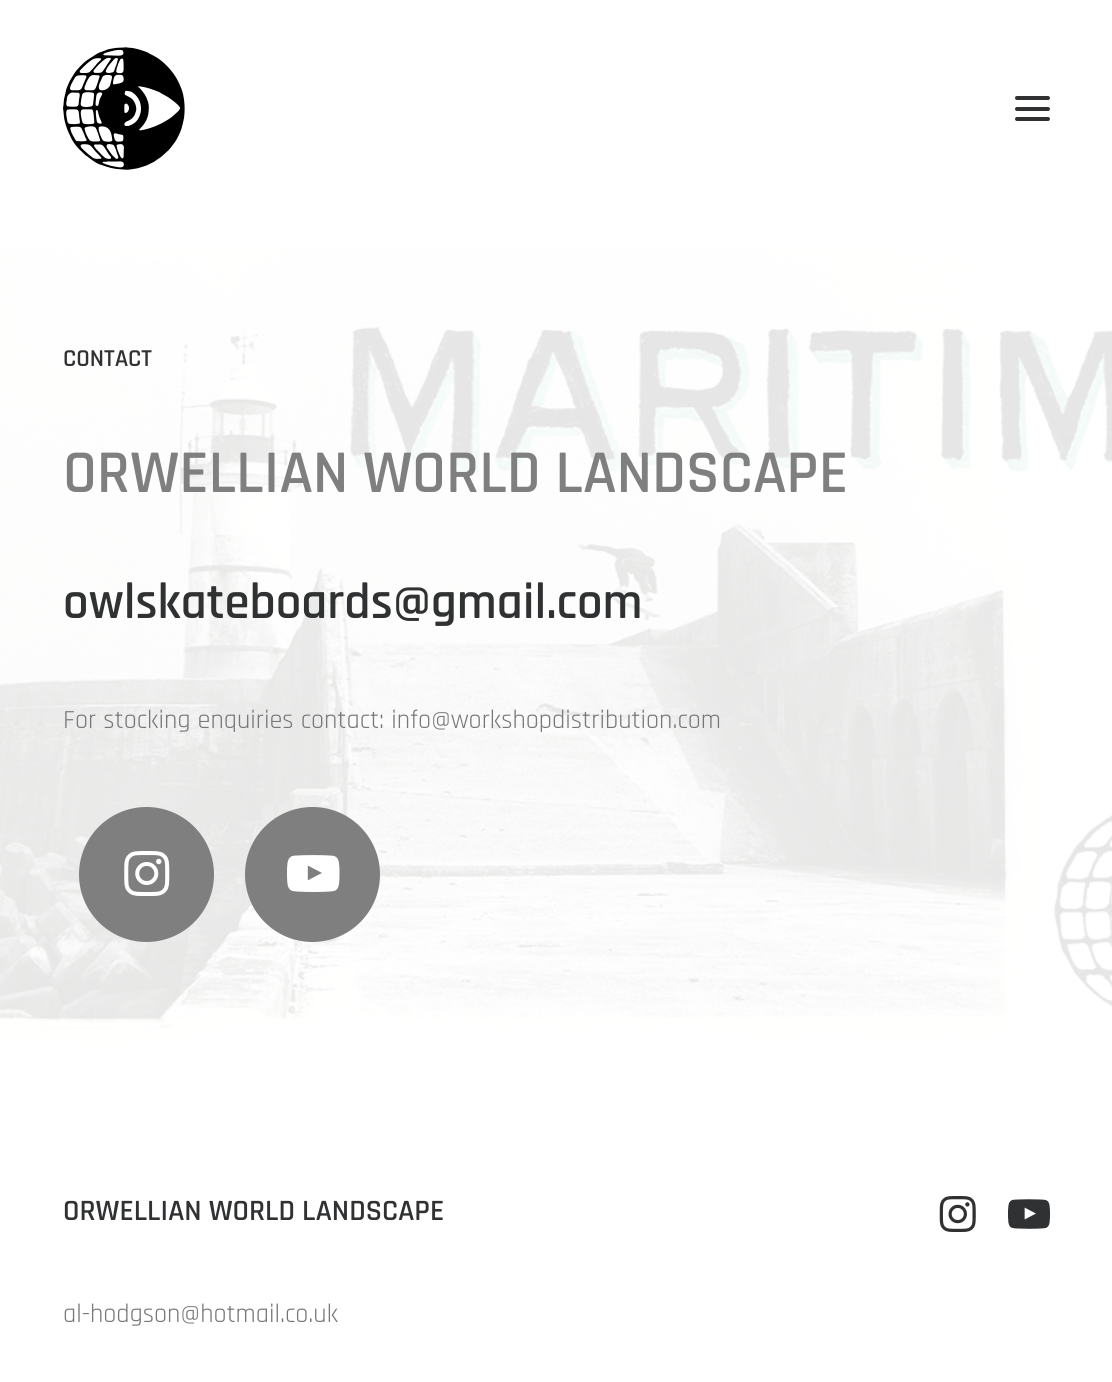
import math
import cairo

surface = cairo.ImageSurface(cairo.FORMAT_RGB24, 1112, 1382)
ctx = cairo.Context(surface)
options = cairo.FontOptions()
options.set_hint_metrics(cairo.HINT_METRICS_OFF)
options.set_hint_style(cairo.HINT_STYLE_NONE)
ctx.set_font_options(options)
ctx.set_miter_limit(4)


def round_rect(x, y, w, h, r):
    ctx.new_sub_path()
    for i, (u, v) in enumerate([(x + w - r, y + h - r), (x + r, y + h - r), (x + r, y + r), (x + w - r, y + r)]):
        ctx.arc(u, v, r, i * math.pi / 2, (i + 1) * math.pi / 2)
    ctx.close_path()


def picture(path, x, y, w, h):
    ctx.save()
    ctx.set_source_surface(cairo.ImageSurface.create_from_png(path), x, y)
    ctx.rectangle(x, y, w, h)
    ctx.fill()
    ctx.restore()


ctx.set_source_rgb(1, 1, 1)
ctx.paint()
picture("img1.png", 63, 47, 122, 123)
ctx.set_source_rgb(0.188, 0.192, 0.2)
round_rect(1015, 107, 35, 4, 2)
ctx.fill()
round_rect(1015, 96, 35, 4, 2)
ctx.fill()
round_rect(1015, 117, 35, 4, 2)
ctx.fill()
picture("img2.png", 0, 217, 1112, 851)
ctx.select_font_face("Rajdhani SemiBold")
ctx.set_font_size(24.5)
ctx.move_to(63, 366)
ctx.show_text("CONTACT")
ctx.set_font_size(61.25)
ctx.set_source_rgb(0.498, 0.498, 0.498)
ctx.move_to(63, 492)
ctx.show_text("ORWELLIAN WORLD LANDSCAPE")
ctx.set_font_size(50.75)
ctx.set_source_rgb(0.188, 0.192, 0.2)
ctx.move_to(63, 618)
ctx.show_text("owlskateboards@gmail.com")
ctx.select_font_face("Rajdhani")
ctx.set_font_size(26.25)
ctx.set_source_rgb(0.467, 0.467, 0.467)
ctx.move_to(63, 728)
ctx.show_text("For stocking enquiries contact: info@workshopdistribution.com")
ctx.set_source_rgb(0.498, 0.498, 0.498)
ctx.new_path()
ctx.arc(146.5, 874.5, 66.5, 0, 2 * math.pi)
ctx.fill_preserve()
ctx.stroke()
picture("img3.png", 124, 851, 46, 45)
ctx.arc(312.5, 874.5, 66.5, 0, 2 * math.pi)
ctx.fill_preserve()
ctx.stroke()
picture("img4.png", 287, 855, 53, 37)
ctx.select_font_face("Rajdhani SemiBold")
ctx.set_font_size(29.75)
ctx.set_source_rgb(0.188, 0.192, 0.2)
ctx.move_to(63, 1220)
ctx.show_text("ORWELLIAN WORLD LANDSCAPE")
ctx.select_font_face("Rajdhani")
ctx.set_font_size(26.25)
ctx.set_source_rgb(0.467, 0.467, 0.467)
ctx.move_to(63, 1322)
ctx.show_text("al-hodgson@hotmail.co.uk")
picture("img5.png", 939, 1196, 37, 36)
picture("img6.png", 1008, 1199, 42, 30)
surface.write_to_png("page.png")
